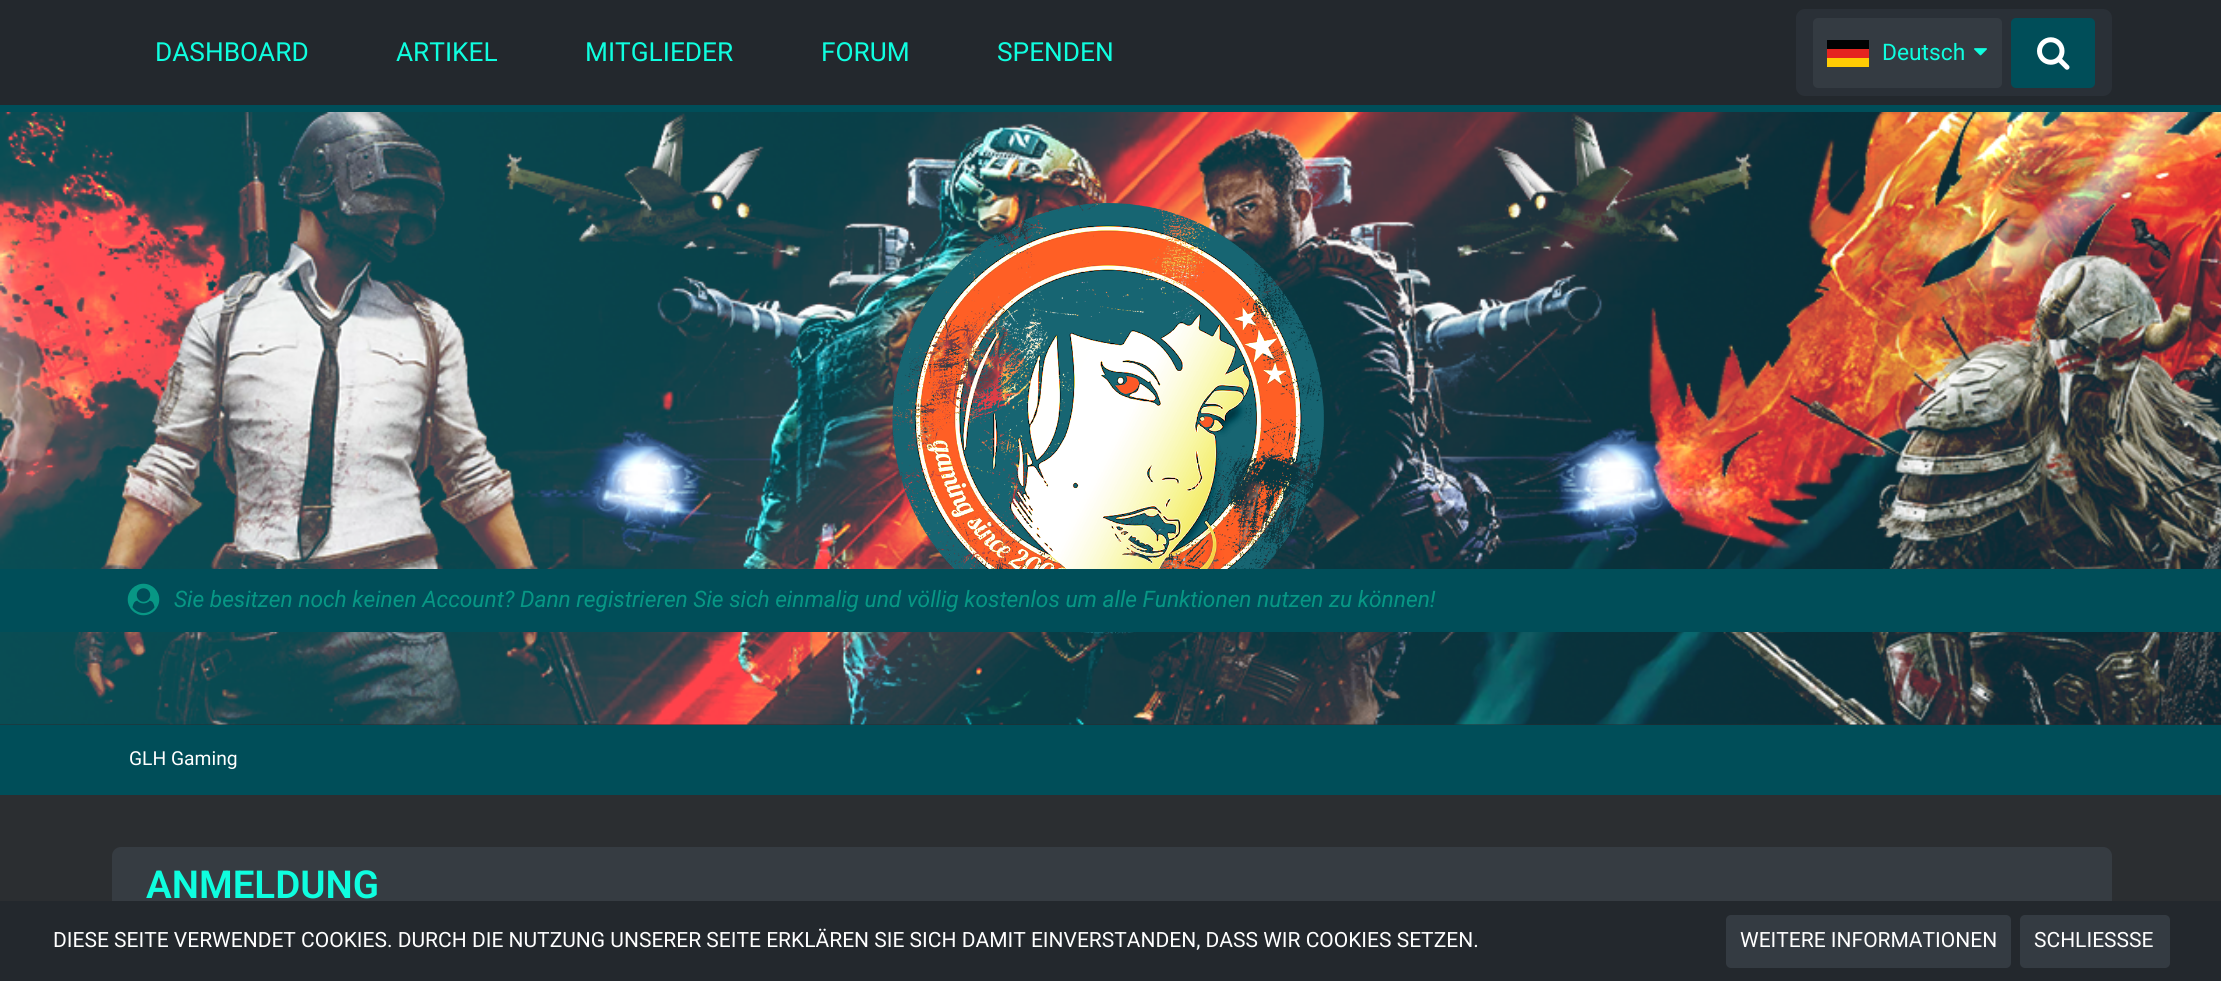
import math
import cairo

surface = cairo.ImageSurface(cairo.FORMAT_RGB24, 2221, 981)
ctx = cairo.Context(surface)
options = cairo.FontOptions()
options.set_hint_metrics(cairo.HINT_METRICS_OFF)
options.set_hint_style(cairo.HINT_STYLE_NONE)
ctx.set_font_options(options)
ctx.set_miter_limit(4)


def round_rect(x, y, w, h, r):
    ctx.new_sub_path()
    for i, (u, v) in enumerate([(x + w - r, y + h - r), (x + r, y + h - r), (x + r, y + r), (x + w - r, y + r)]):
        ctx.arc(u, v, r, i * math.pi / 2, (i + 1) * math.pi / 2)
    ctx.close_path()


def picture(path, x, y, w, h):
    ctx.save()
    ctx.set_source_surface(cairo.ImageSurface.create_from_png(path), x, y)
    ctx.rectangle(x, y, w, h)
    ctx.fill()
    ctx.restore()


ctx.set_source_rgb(0.169, 0.18, 0.192)
ctx.paint()
ctx.set_source_rgb(0.137, 0.157, 0.176)
ctx.rectangle(0, 0, 2221, 105)
ctx.fill()
ctx.set_source_rgb(0, 0.306, 0.349)
ctx.rectangle(0, 105, 2221, 7)
ctx.fill()
ctx.select_font_face("Roboto")
ctx.set_font_size(26.25)
ctx.set_source_rgb(0.059, 0.996, 0.875)
ctx.move_to(155, 61)
ctx.show_text("DASHBOARD")
ctx.move_to(396, 61)
ctx.show_text("ARTIKEL")
ctx.move_to(585, 61)
ctx.show_text("MITGLIEDER")
ctx.move_to(821, 61)
ctx.show_text("FORUM")
ctx.move_to(997, 61)
ctx.show_text("SPENDEN")
ctx.set_source_rgb(0.165, 0.188, 0.216)
round_rect(1796, 9, 316, 87, 9)
ctx.fill()
ctx.set_source_rgb(0.204, 0.231, 0.259)
round_rect(1813, 18, 189, 70, 5)
ctx.fill()
ctx.set_source_rgb(0.004, 0.008, 0.008)
ctx.rectangle(1827, 40, 42, 9)
ctx.fill()
ctx.set_source_rgb(1, 0.8, 0.016)
ctx.rectangle(1827, 58, 42, 9)
ctx.fill()
ctx.set_source_rgb(0.898, 0.141, 0.125)
ctx.rectangle(1827, 49, 42, 9)
ctx.fill()
ctx.set_font_size(22.75)
ctx.set_source_rgb(0.059, 0.996, 0.875)
ctx.move_to(1882, 60)
ctx.show_text("Deutsch")
picture("img1.png", 1974, 48, 13, 8)
ctx.set_source_rgb(0, 0.306, 0.349)
round_rect(2011, 18, 84, 70, 5)
ctx.fill()
picture("img2.png", 2037, 37, 33, 33)
ctx.set_source_rgb(0.157, 0.173, 0.188)
ctx.rectangle(0, 724, 2221, 1)
ctx.fill()
picture("img3.png", 0, 112, 2221, 613)
picture("img4.png", 892, 203, 432, 431)
ctx.set_source_rgb(0, 0.306, 0.349)
ctx.rectangle(0, 569, 2221, 63)
ctx.fill()
picture("img5.png", 127, 583, 33, 33)
ctx.select_font_face("Roboto", cairo.FONT_SLANT_ITALIC)
ctx.set_source_rgb(0.031, 0.592, 0.522)
ctx.move_to(174, 607)
ctx.show_text("Sie besitzen noch keinen Account? Dann registrieren Sie sich einmalig und völlig kostenlos um alle Funktionen nutzen zu können!")
ctx.set_source_rgb(0, 0.306, 0.349)
ctx.rectangle(0, 725, 2221, 70)
ctx.fill()
ctx.select_font_face("Roboto")
ctx.set_font_size(19.25)
ctx.set_source_rgb(1, 1, 1)
ctx.move_to(129, 765)
ctx.show_text("GLH Gaming")
ctx.set_source_rgb(0.212, 0.235, 0.259)
round_rect(112, 847, 2000, 75, 9)
ctx.fill()
ctx.select_font_face("Roboto SemiBold")
ctx.set_font_size(38.5)
ctx.set_source_rgb(0.059, 0.996, 0.875)
ctx.move_to(146, 898)
ctx.show_text("ANMELDUNG")
ctx.set_source_rgb(0.137, 0.157, 0.176)
ctx.rectangle(0, 901, 2221, 80)
ctx.fill()
ctx.select_font_face("Roboto")
ctx.set_font_size(21)
ctx.set_source_rgb(1, 1, 1)
ctx.move_to(53, 947)
ctx.show_text("DIESE SEITE VERWENDET COOKIES. DURCH DIE NUTZUNG UNSERER SEITE ERKLÄREN SIE SICH DAMIT EINVERSTANDEN, DASS WIR COOKIES SETZEN.")
ctx.set_source_rgb(0.204, 0.231, 0.259)
round_rect(1726, 915, 285, 53, 5)
ctx.fill()
ctx.set_source_rgb(1, 1, 1)
ctx.move_to(1740, 947)
ctx.show_text("WEITERE INFORMATIONEN")
ctx.set_source_rgb(0.204, 0.231, 0.259)
round_rect(2020, 915, 150, 53, 5)
ctx.fill()
ctx.set_source_rgb(1, 1, 1)
ctx.move_to(2034, 947)
ctx.show_text("SCHLIESSSE")
surface.write_to_png("page.png")
